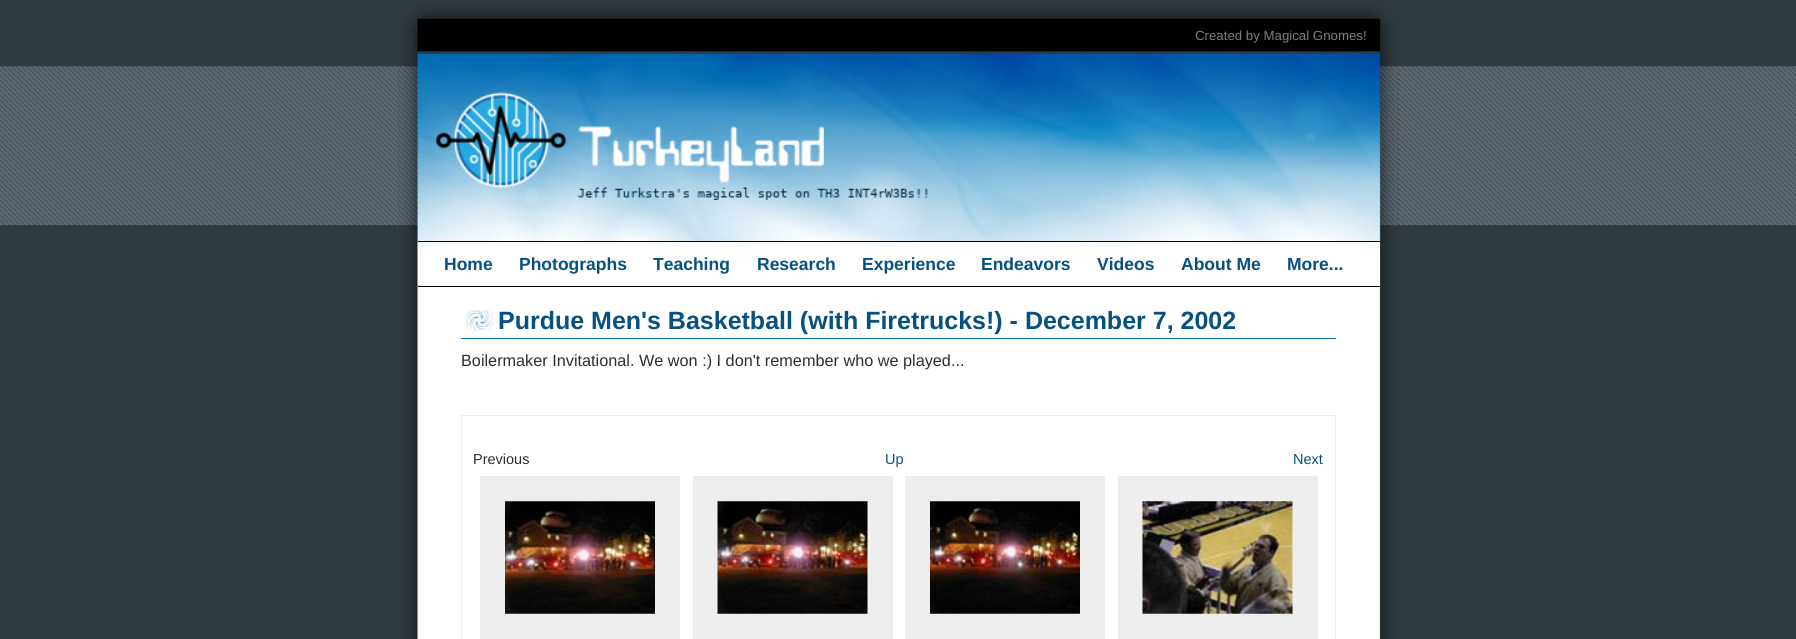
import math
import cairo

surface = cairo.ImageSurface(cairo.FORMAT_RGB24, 1796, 639)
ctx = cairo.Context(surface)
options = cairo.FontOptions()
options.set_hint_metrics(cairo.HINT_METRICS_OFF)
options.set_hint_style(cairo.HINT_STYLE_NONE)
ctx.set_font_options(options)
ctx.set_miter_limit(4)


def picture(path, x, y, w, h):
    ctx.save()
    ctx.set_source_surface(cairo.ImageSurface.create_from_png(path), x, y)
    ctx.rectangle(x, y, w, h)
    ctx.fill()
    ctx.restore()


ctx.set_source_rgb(0.188, 0.231, 0.255)
ctx.paint()
picture("img1.png", 0, 64, 1796, 161)
picture("img2.png", 398, 0, 1001, 639)
picture("img3.png", 399, 0, 1000, 55)
ctx.select_font_face("Liberation Sans")
ctx.set_font_size(13.25)
ctx.set_source_rgb(0.502, 0.502, 0.502)
ctx.move_to(1195, 40)
ctx.show_text("Created by Magical Gnomes!")
picture("img4.png", 398, 55, 1001, 187)
picture("img5.png", 436, 92, 492, 108)
ctx.set_source_rgb(1, 1, 1)
ctx.rectangle(418, 242, 962, 46)
ctx.fill()
ctx.set_source_rgb(0, 0, 0)
ctx.rectangle(418, 241, 962, 1)
ctx.fill()
ctx.rectangle(418, 286, 962, 1)
ctx.fill()
ctx.select_font_face("Liberation Sans", cairo.FONT_SLANT_NORMAL, cairo.FONT_WEIGHT_BOLD)
ctx.set_font_size(17.5)
ctx.set_source_rgb(0.027, 0.318, 0.506)
ctx.move_to(444, 270)
ctx.show_text("Home")
ctx.move_to(519, 270)
ctx.show_text("Photographs")
ctx.move_to(653, 270)
ctx.show_text("Teaching")
ctx.move_to(757, 270)
ctx.show_text("Research")
ctx.move_to(862, 270)
ctx.show_text("Experience")
ctx.move_to(981, 270)
ctx.show_text("Endeavors")
ctx.move_to(1097, 270)
ctx.show_text("Videos")
ctx.move_to(1181, 270)
ctx.show_text("About Me")
ctx.move_to(1287, 270)
ctx.show_text("More...")
picture("img6.png", 464, 310, 31, 22)
ctx.set_font_size(25)
ctx.move_to(498, 329)
ctx.show_text("Purdue Men's Basketball (with Firetrucks!) - December 7, 2002")
ctx.set_source_rgb(0.012, 0.424, 0.706)
ctx.rectangle(461, 338, 875, 1)
ctx.fill()
ctx.select_font_face("Liberation Sans")
ctx.set_font_size(16.25)
ctx.set_source_rgb(0.18, 0.18, 0.18)
ctx.move_to(461, 366)
ctx.show_text("Boilermaker Invitational. We won :) I don't remember who we played...")
ctx.rectangle(461.5, 415.5, 874, 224)
ctx.set_source_rgb(0.933, 0.933, 0.933)
ctx.set_line_width(1)
ctx.stroke()
ctx.set_font_size(14.5)
ctx.set_source_rgb(0.18, 0.18, 0.18)
ctx.move_to(473, 464)
ctx.show_text("Previous")
ctx.set_source_rgb(0.027, 0.318, 0.506)
ctx.move_to(885, 464)
ctx.show_text("Up")
ctx.move_to(1293, 464)
ctx.show_text("Next")
ctx.set_source_rgb(0.933, 0.933, 0.933)
ctx.rectangle(480, 476, 200, 163)
ctx.fill()
ctx.rectangle(693, 476, 200, 163)
ctx.fill()
ctx.rectangle(905, 476, 200, 163)
ctx.fill()
ctx.rectangle(1118, 476, 200, 163)
ctx.fill()
picture("img7.png", 505, 501, 150, 113)
picture("img8.png", 717, 501, 151, 113)
picture("img9.png", 930, 501, 150, 113)
picture("img10.png", 1142, 501, 151, 113)
surface.write_to_png("page.png")
